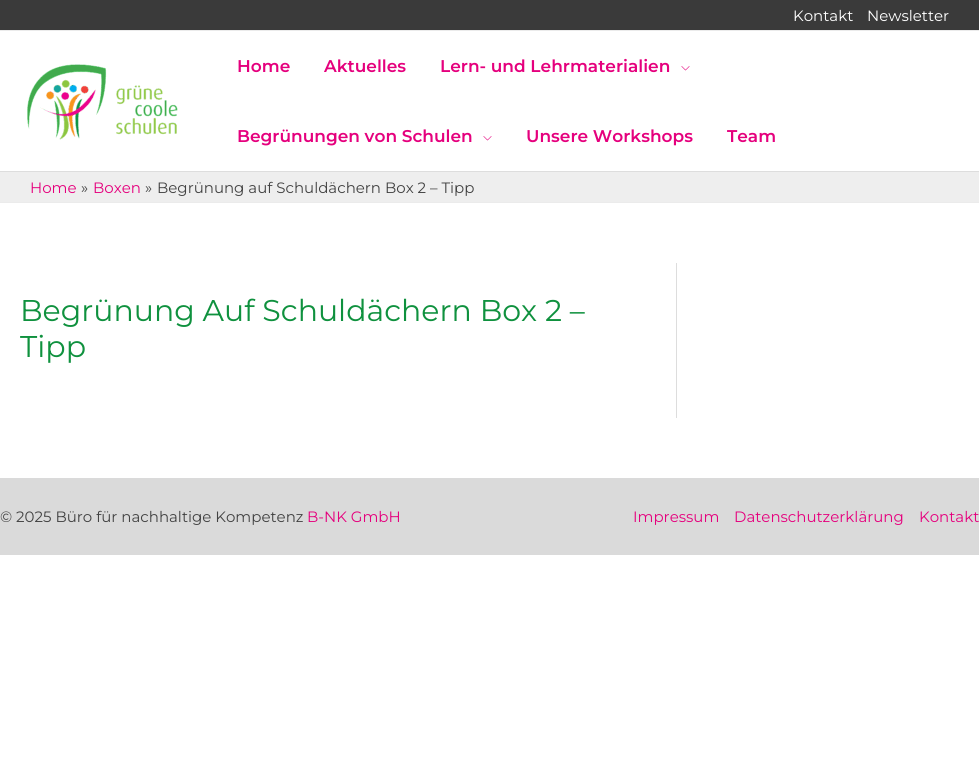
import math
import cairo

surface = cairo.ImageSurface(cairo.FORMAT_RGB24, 979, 760)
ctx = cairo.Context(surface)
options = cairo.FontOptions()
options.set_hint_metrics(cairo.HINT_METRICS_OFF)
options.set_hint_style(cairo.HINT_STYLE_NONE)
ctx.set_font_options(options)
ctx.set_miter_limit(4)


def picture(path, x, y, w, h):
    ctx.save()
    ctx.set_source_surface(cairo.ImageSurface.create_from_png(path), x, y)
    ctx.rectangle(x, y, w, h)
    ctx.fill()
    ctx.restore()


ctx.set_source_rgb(1, 1, 1)
ctx.paint()
ctx.set_source_rgb(0.227, 0.227, 0.227)
ctx.rectangle(0, 0, 979, 30)
ctx.fill()
ctx.set_source_rgb(0.918, 0.918, 0.918)
ctx.rectangle(0, 30, 979, 1)
ctx.fill()
ctx.select_font_face("Montserrat Thin")
ctx.set_font_size(15)
ctx.set_source_rgb(1, 1, 1)
ctx.move_to(793, 21)
ctx.show_text("Kontakt")
ctx.move_to(867, 21)
ctx.show_text("Newsletter")
ctx.set_source_rgb(0.867, 0.867, 0.867)
ctx.rectangle(0, 171, 979, 1)
ctx.fill()
picture("img1.png", 27, 64, 151, 76)
ctx.select_font_face("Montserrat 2 Thin")
ctx.set_font_size(17)
ctx.set_source_rgb(0.898, 0, 0.49)
ctx.move_to(237, 72)
ctx.show_text("Home")
ctx.move_to(324, 72)
ctx.show_text("Aktuelles")
ctx.move_to(440, 72)
ctx.show_text("Lern- und Lehrmaterialien")
picture("img2.png", 681, 66, 9, 5)
ctx.move_to(237, 142)
ctx.show_text("Begrünungen von Schulen")
picture("img2.png", 483, 136, 9, 5)
ctx.move_to(526, 142)
ctx.show_text("Unsere Workshops")
ctx.move_to(727, 142)
ctx.show_text("Team")
ctx.set_source_rgb(0.933, 0.933, 0.933)
ctx.rectangle(0, 172, 979, 30)
ctx.fill()
ctx.set_source_rgb(0.918, 0.918, 0.918)
ctx.rectangle(0, 202, 979, 1)
ctx.fill()
ctx.select_font_face("Montserrat Thin")
ctx.set_font_size(15)
ctx.set_source_rgb(0.898, 0, 0.49)
ctx.move_to(30, 193)
ctx.show_text("Home")
ctx.set_source_rgb(0.259, 0.259, 0.259)
ctx.move_to(81, 193)
ctx.show_text("»")
ctx.set_source_rgb(0.898, 0, 0.49)
ctx.move_to(93, 193)
ctx.show_text("Boxen")
ctx.set_source_rgb(0.259, 0.259, 0.259)
ctx.move_to(145, 193)
ctx.show_text("»")
ctx.move_to(157, 193)
ctx.show_text("Begrünung auf Schuldächern Box 2 – Tipp")
ctx.set_source_rgb(0.867, 0.867, 0.867)
ctx.rectangle(676, 263, 1, 155)
ctx.fill()
ctx.set_font_size(30)
ctx.set_source_rgb(0.059, 0.569, 0.243)
ctx.move_to(20, 321)
ctx.show_text("Begrünung Auf Schuldächern Box 2 –")
ctx.move_to(20, 357)
ctx.show_text("Tipp")
ctx.set_source_rgb(0.855, 0.855, 0.855)
ctx.rectangle(0, 478, 979, 77)
ctx.fill()
ctx.set_font_size(15)
ctx.set_source_rgb(0.259, 0.259, 0.259)
ctx.move_to(0, 522)
ctx.show_text("© 2025 Büro für nachhaltige Kompetenz")
ctx.set_source_rgb(0.898, 0, 0.49)
ctx.move_to(307, 522)
ctx.show_text("B-NK GmbH")
ctx.move_to(633, 522)
ctx.show_text("Impressum")
ctx.move_to(734, 522)
ctx.show_text("Datenschutzerklärung")
ctx.move_to(919, 522)
ctx.show_text("Kontakt")
surface.write_to_png("page.png")
